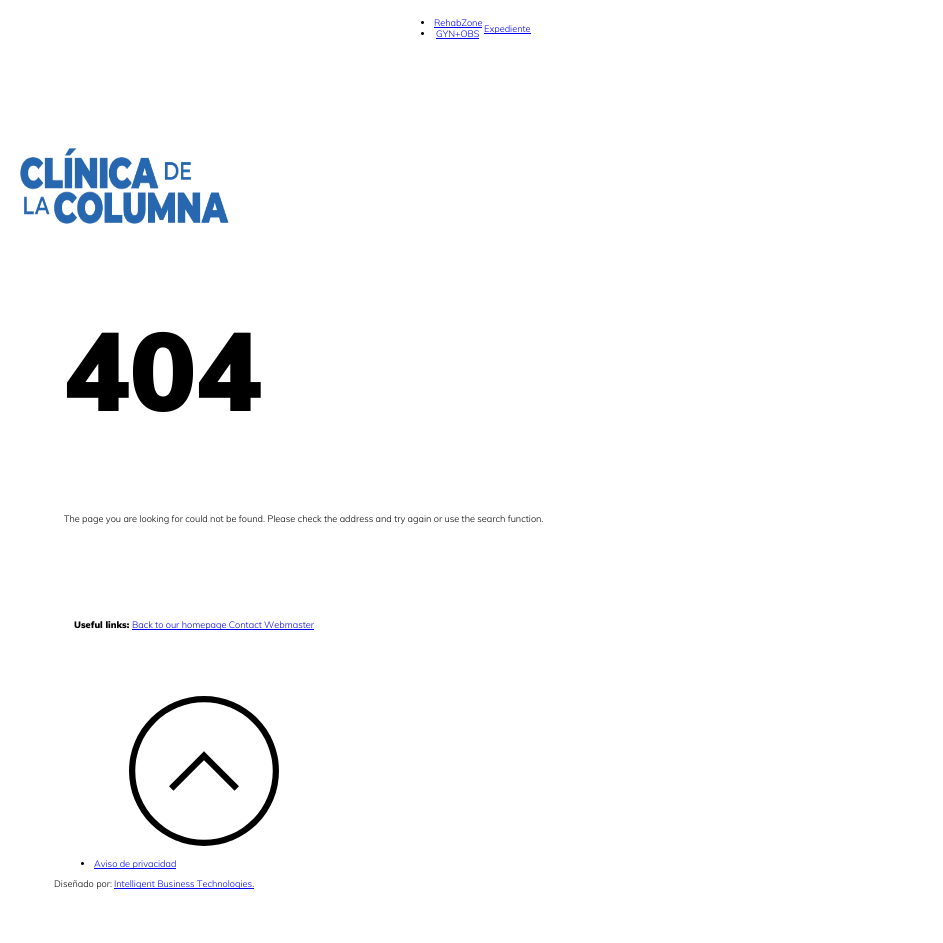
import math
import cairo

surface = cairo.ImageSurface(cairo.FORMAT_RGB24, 943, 943)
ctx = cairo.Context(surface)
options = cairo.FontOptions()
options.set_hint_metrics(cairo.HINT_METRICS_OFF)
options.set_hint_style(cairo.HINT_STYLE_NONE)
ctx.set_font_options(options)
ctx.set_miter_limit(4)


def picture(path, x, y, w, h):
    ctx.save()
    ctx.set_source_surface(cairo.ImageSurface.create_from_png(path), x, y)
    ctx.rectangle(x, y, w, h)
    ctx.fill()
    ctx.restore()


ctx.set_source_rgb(1, 1, 1)
ctx.paint()
ctx.set_source_rgb(0, 0, 0)
ctx.arc(422.5, 22.5, 1.5, 0, 2 * math.pi)
ctx.fill()
ctx.select_font_face("Muli Light")
ctx.set_font_size(9.2)
ctx.set_source_rgb(0, 0, 0.933)
ctx.move_to(434, 26)
ctx.show_text("RehabZone")
ctx.rectangle(434, 27, 48, 1)
ctx.fill()
ctx.set_source_rgb(0, 0, 0)
ctx.arc(422.5, 33.5, 1.5, 0, 2 * math.pi)
ctx.fill()
ctx.set_source_rgb(0, 0, 0.933)
ctx.move_to(436, 37)
ctx.show_text("GYN+OBS")
ctx.rectangle(436, 38, 43, 1)
ctx.fill()
ctx.rectangle(484, 33, 47, 1)
ctx.fill()
ctx.move_to(484, 32)
ctx.show_text("Expediente")
picture("img1.png", 20, 148, 209, 76)
ctx.select_font_face("Muli Black")
ctx.set_font_size(110)
ctx.set_source_rgb(0, 0, 0)
ctx.move_to(64, 411)
ctx.show_text("404")
ctx.select_font_face("Muli Light")
ctx.set_font_size(9.2)
ctx.move_to(64, 522)
ctx.show_text("The page you are looking for could not be found. Please check the address and try again or use the search function.")
ctx.select_font_face("Muli Black")
ctx.move_to(74, 628)
ctx.show_text("Useful links:")
ctx.set_source_rgb(0, 0, 0.933)
ctx.rectangle(132, 629, 182, 1)
ctx.fill()
ctx.select_font_face("Muli Light")
ctx.move_to(132, 628)
ctx.show_text("Back to our homepage Contact Webmaster")
picture("img2.png", 129, 696, 150, 150)
ctx.set_source_rgb(0, 0, 0)
ctx.arc(82.5, 863.5, 1.5, 0, 2 * math.pi)
ctx.fill()
ctx.set_source_rgb(0, 0, 0.933)
ctx.rectangle(94, 868, 82, 1)
ctx.fill()
ctx.move_to(94, 867)
ctx.show_text("Aviso de privacidad")
ctx.set_source_rgb(0, 0, 0)
ctx.move_to(54, 887)
ctx.show_text("Diseñado por:")
ctx.set_source_rgb(0, 0, 0.933)
ctx.rectangle(114, 888, 140, 1)
ctx.fill()
ctx.move_to(114, 887)
ctx.show_text("Intelligent Business Technologies.")
surface.write_to_png("page.png")
